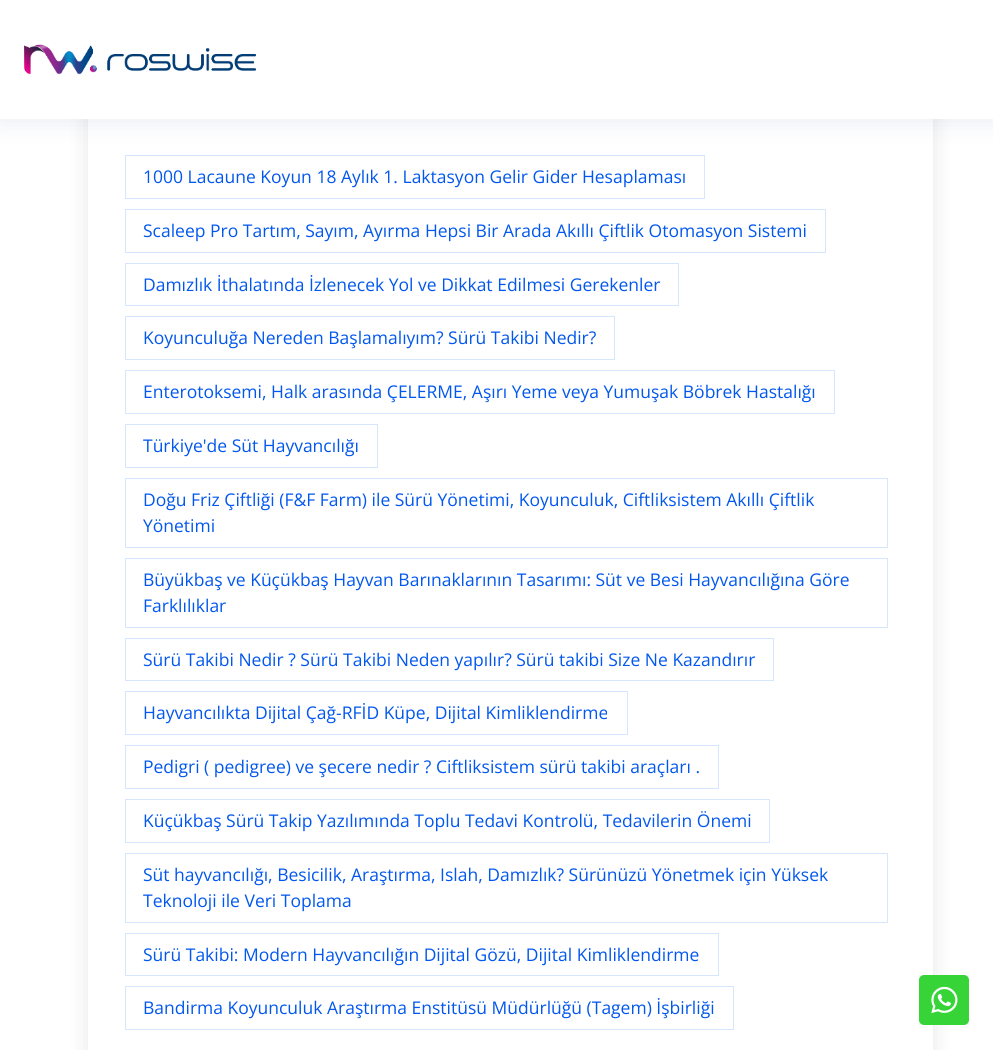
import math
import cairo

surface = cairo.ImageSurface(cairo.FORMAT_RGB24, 993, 1050)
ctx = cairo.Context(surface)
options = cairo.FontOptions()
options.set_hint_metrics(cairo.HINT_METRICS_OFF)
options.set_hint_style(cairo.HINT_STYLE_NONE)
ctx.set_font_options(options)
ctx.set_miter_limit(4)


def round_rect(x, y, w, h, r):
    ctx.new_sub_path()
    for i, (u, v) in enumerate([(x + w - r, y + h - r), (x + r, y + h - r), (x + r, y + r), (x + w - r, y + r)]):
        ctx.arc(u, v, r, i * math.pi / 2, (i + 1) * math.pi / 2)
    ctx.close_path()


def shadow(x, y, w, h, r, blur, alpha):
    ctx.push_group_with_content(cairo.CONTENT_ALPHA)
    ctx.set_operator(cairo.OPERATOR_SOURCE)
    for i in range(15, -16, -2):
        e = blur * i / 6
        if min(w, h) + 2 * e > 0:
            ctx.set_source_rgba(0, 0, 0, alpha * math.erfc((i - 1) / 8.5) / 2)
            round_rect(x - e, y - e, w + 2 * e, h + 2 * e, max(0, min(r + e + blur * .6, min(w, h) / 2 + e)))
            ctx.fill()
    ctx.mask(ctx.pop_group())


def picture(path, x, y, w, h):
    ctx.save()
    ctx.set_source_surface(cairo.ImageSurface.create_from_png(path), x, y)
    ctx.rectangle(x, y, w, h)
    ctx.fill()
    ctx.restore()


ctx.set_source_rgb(1, 1, 1)
ctx.paint()
ctx.save()
ctx.set_fill_rule(cairo.FILL_RULE_EVEN_ODD)
ctx.new_path()
ctx.move_to(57, 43)
ctx.line_to(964, 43)
ctx.line_to(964, 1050)
ctx.line_to(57, 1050)
ctx.close_path()
ctx.move_to(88, 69)
ctx.line_to(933, 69)
ctx.line_to(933, 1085)
ctx.line_to(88, 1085)
ctx.close_path()
ctx.clip()
ctx.set_source_rgb(0, 0, 0)
shadow(88, 74, 845, 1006, 0, 10, 0.1)
ctx.restore()
ctx.rectangle(125.5, 155.5, 579, 43)
ctx.set_source_rgb(0.843, 0.902, 1)
ctx.set_line_width(1)
ctx.stroke()
ctx.set_source_rgb(0.004, 0.161, 0.439)
shadow(0, 3, 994, 118, 0, 12.5, 0.1)
ctx.set_source_rgb(1, 1, 1)
ctx.rectangle(0, 0, 993, 119)
ctx.fill()
picture("img1.png", 24, 44, 232, 31)
ctx.select_font_face("Open Sans")
ctx.set_font_size(17.5)
ctx.set_source_rgb(0.008, 0.341, 0.933)
ctx.move_to(143, 183)
ctx.show_text("1000 Lacaune Koyun 18 Aylık 1. Laktasyon Gelir Gider Hesaplaması")
ctx.rectangle(125.5, 209.5, 700, 43)
ctx.set_source_rgb(0.843, 0.902, 1)
ctx.stroke()
ctx.set_source_rgb(0.008, 0.341, 0.933)
ctx.move_to(143, 237)
ctx.show_text("Scaleep Pro Tartım, Sayım, Ayırma Hepsi Bir Arada Akıllı Çiftlik Otomasyon Sistemi")
ctx.rectangle(125.5, 263.5, 553, 42)
ctx.set_source_rgb(0.843, 0.902, 1)
ctx.stroke()
ctx.set_source_rgb(0.008, 0.341, 0.933)
ctx.move_to(143, 291)
ctx.show_text("Damızlık İthalatında İzlenecek Yol ve Dikkat Edilmesi Gerekenler")
ctx.rectangle(125.5, 316.5, 489, 43)
ctx.set_source_rgb(0.843, 0.902, 1)
ctx.stroke()
ctx.set_source_rgb(0.008, 0.341, 0.933)
ctx.move_to(143, 344)
ctx.show_text("Koyunculuğa Nereden Başlamalıyım? Sürü Takibi Nedir?")
ctx.rectangle(125.5, 370.5, 709, 43)
ctx.set_source_rgb(0.843, 0.902, 1)
ctx.stroke()
ctx.set_source_rgb(0.008, 0.341, 0.933)
ctx.move_to(143, 398)
ctx.show_text("Enterotoksemi, Halk arasında ÇELERME, Aşırı Yeme veya Yumuşak Böbrek Hastalığı")
ctx.rectangle(125.5, 424.5, 252, 43)
ctx.set_source_rgb(0.843, 0.902, 1)
ctx.stroke()
ctx.set_source_rgb(0.008, 0.341, 0.933)
ctx.move_to(143, 452)
ctx.show_text("Türkiye'de Süt Hayvancılığı")
ctx.rectangle(125.5, 478.5, 762, 69)
ctx.set_source_rgb(0.843, 0.902, 1)
ctx.stroke()
ctx.set_source_rgb(0.008, 0.341, 0.933)
ctx.move_to(143, 506)
ctx.show_text("Doğu Friz Çiftliği (F&F Farm) ile Sürü Yönetimi, Koyunculuk, Ciftliksistem Akıllı Çiftlik")
ctx.move_to(143, 532)
ctx.show_text("Yönetimi")
ctx.rectangle(125.5, 558.5, 762, 69)
ctx.set_source_rgb(0.843, 0.902, 1)
ctx.stroke()
ctx.set_source_rgb(0.008, 0.341, 0.933)
ctx.move_to(143, 586)
ctx.show_text("Büyükbaş ve Küçükbaş Hayvan Barınaklarının Tasarımı: Süt ve Besi Hayvancılığına Göre")
ctx.move_to(143, 612)
ctx.show_text("Farklılıklar")
ctx.rectangle(125.5, 638.5, 648, 42)
ctx.set_source_rgb(0.843, 0.902, 1)
ctx.stroke()
ctx.set_source_rgb(0.008, 0.341, 0.933)
ctx.move_to(143, 666)
ctx.show_text("Sürü Takibi Nedir ? Sürü Takibi Neden yapılır? Sürü takibi Size Ne Kazandırır")
ctx.rectangle(125.5, 691.5, 502, 43)
ctx.set_source_rgb(0.843, 0.902, 1)
ctx.stroke()
ctx.set_source_rgb(0.008, 0.341, 0.933)
ctx.move_to(143, 719)
ctx.show_text("Hayvancılıkta Dijital Çağ-RFİD Küpe, Dijital Kimliklendirme")
ctx.rectangle(125.5, 745.5, 593, 43)
ctx.set_source_rgb(0.843, 0.902, 1)
ctx.stroke()
ctx.set_source_rgb(0.008, 0.341, 0.933)
ctx.move_to(143, 773)
ctx.show_text("Pedigri ( pedigree) ve şecere nedir ? Ciftliksistem sürü takibi araçları .")
ctx.rectangle(125.5, 799.5, 644, 43)
ctx.set_source_rgb(0.843, 0.902, 1)
ctx.stroke()
ctx.set_source_rgb(0.008, 0.341, 0.933)
ctx.move_to(143, 827)
ctx.show_text("Küçükbaş Sürü Takip Yazılımında Toplu Tedavi Kontrolü, Tedavilerin Önemi")
ctx.rectangle(125.5, 853.5, 762, 69)
ctx.set_source_rgb(0.843, 0.902, 1)
ctx.stroke()
ctx.set_source_rgb(0.008, 0.341, 0.933)
ctx.move_to(143, 881)
ctx.show_text("Süt hayvancılığı, Besicilik, Araştırma, Islah, Damızlık? Sürünüzü Yönetmek için Yüksek")
ctx.move_to(143, 907)
ctx.show_text("Teknoloji ile Veri Toplama")
ctx.rectangle(125.5, 933.5, 593, 42)
ctx.set_source_rgb(0.843, 0.902, 1)
ctx.stroke()
ctx.set_source_rgb(0.008, 0.341, 0.933)
ctx.move_to(143, 961)
ctx.show_text("Sürü Takibi: Modern Hayvancılığın Dijital Gözü, Dijital Kimliklendirme")
ctx.rectangle(125.5, 986.5, 608, 43)
ctx.set_source_rgb(0.843, 0.902, 1)
ctx.stroke()
ctx.set_source_rgb(0.008, 0.341, 0.933)
ctx.move_to(143, 1014)
ctx.show_text("Bandirma Koyunculuk Araştırma Enstitüsü Müdürlüğü (Tagem) İşbirliği")
ctx.set_source_rgb(0.216, 0.831, 0.216)
round_rect(919, 975, 50, 50, 5)
ctx.fill()
picture("img2.png", 931, 986, 27, 28)
surface.write_to_png("page.png")
